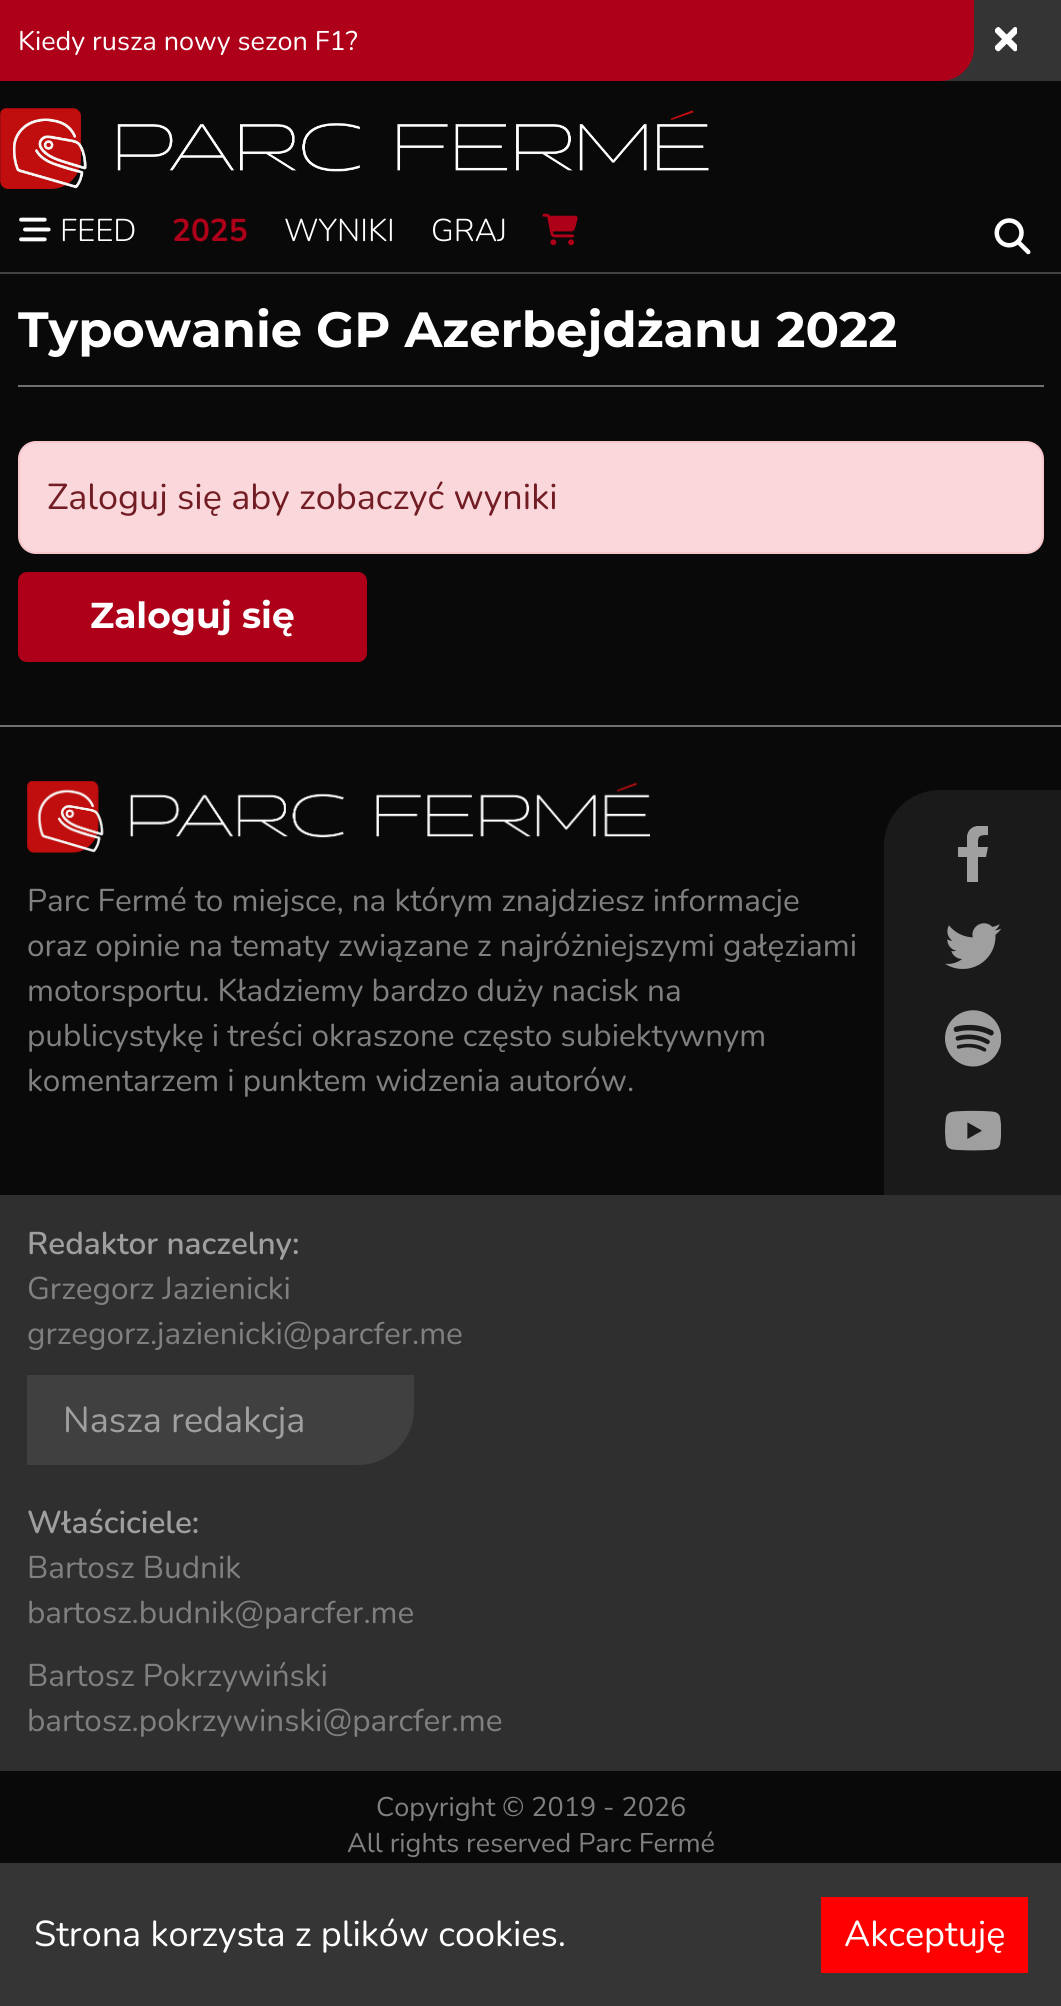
import math
import cairo

surface = cairo.ImageSurface(cairo.FORMAT_RGB24, 1061, 2006)
ctx = cairo.Context(surface)
options = cairo.FontOptions()
options.set_hint_metrics(cairo.HINT_METRICS_OFF)
options.set_hint_style(cairo.HINT_STYLE_NONE)
ctx.set_font_options(options)
ctx.set_miter_limit(4)


def round_rect(x, y, w, h, r):
    ctx.new_sub_path()
    for i, (u, v) in enumerate([(x + w - r, y + h - r), (x + r, y + h - r), (x + r, y + r), (x + w - r, y + r)]):
        ctx.arc(u, v, r, i * math.pi / 2, (i + 1) * math.pi / 2)
    ctx.close_path()


def picture(path, x, y, w, h):
    ctx.save()
    ctx.set_source_surface(cairo.ImageSurface.create_from_png(path), x, y)
    ctx.rectangle(x, y, w, h)
    ctx.fill()
    ctx.restore()


ctx.set_source_rgb(0.039, 0.039, 0.039)
ctx.paint()
ctx.set_source_rgb(0.208, 0.204, 0.208)
ctx.rectangle(940, 0, 121, 81)
ctx.fill()
ctx.set_source_rgb(0.682, 0, 0.094)
ctx.new_path()
ctx.move_to(0, 0)
ctx.line_to(974, 0)
ctx.line_to(974, 47)
ctx.curve_to(974, 66, 959, 81, 940, 81)
ctx.line_to(0, 81)
ctx.close_path()
ctx.fill()
ctx.select_font_face("Nunito")
ctx.set_font_size(27)
ctx.set_source_rgb(1, 1, 1)
ctx.move_to(18, 50)
ctx.show_text("Kiedy rusza nowy sezon F1?")
picture("img1.png", 995, 27, 22, 25)
ctx.set_source_rgb(0.259, 0.259, 0.259)
ctx.rectangle(0, 272, 1061, 2)
ctx.fill()
picture("img2.png", 0, 108, 709, 81)
picture("img3.png", 19, 217, 32, 25)
ctx.select_font_face("Nunito Light")
ctx.set_font_size(31.5)
ctx.set_source_rgb(1, 1, 1)
ctx.move_to(60, 241)
ctx.show_text("FEED")
ctx.select_font_face("Nunito", cairo.FONT_SLANT_NORMAL, cairo.FONT_WEIGHT_BOLD)
ctx.set_source_rgb(0.682, 0, 0.094)
ctx.move_to(172, 241)
ctx.show_text("2025")
ctx.select_font_face("Nunito Light")
ctx.set_source_rgb(1, 1, 1)
ctx.move_to(284, 241)
ctx.show_text("WYNIKI")
ctx.move_to(431, 241)
ctx.show_text("GRAJ")
picture("img4.png", 542, 213, 36, 33)
picture("img5.png", 994, 218, 37, 37)
ctx.set_source_rgb(0.439, 0.439, 0.439)
ctx.rectangle(18, 385, 1026, 2)
ctx.fill()
ctx.select_font_face("Montserrat", cairo.FONT_SLANT_NORMAL, cairo.FONT_WEIGHT_BOLD)
ctx.set_font_size(49.5)
ctx.set_source_rgb(1, 1, 1)
ctx.move_to(18, 347)
ctx.show_text("Typowanie GP Azerbejdżanu 2022")
ctx.set_source_rgb(0.973, 0.843, 0.855)
round_rect(19, 442, 1024, 111, 17)
ctx.fill_preserve()
ctx.set_source_rgb(0.961, 0.776, 0.796)
ctx.stroke()
ctx.select_font_face("Nunito")
ctx.set_font_size(36)
ctx.set_source_rgb(0.447, 0.11, 0.141)
ctx.move_to(47, 509)
ctx.show_text("Zaloguj się aby zobaczyć wyniki")
ctx.set_source_rgb(0.682, 0, 0.094)
round_rect(18, 572, 349, 90, 9)
ctx.fill()
ctx.select_font_face("Montserrat", cairo.FONT_SLANT_NORMAL, cairo.FONT_WEIGHT_BOLD)
ctx.set_source_rgb(1, 1, 1)
ctx.move_to(90, 628)
ctx.show_text("Zaloguj się")
ctx.set_source_rgb(0.439, 0.439, 0.439)
ctx.rectangle(0, 725, 1061, 2)
ctx.fill()
picture("img6.png", 27, 781, 623, 72)
ctx.select_font_face("Nunito")
ctx.set_font_size(31.5)
ctx.set_source_rgb(0.502, 0.502, 0.502)
ctx.move_to(27, 911)
ctx.show_text("Parc Fermé to miejsce, na którym znajdziesz informacje")
ctx.move_to(27, 956)
ctx.show_text("oraz opinie na tematy związane z najróżniejszymi gałęziami")
ctx.move_to(27, 1001)
ctx.show_text("motorsportu. Kładziemy bardzo duży nacisk na")
ctx.move_to(27, 1046)
ctx.show_text("publicystykę i treści okraszone często subiektywnym")
ctx.move_to(27, 1091)
ctx.show_text("komentarzem i punktem widzenia autorów.")
ctx.set_source_rgb(0.102, 0.102, 0.102)
ctx.new_path()
ctx.move_to(940, 790)
ctx.line_to(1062, 790)
ctx.line_to(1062, 1195)
ctx.line_to(884, 1195)
ctx.line_to(884, 846)
ctx.curve_to(884, 815, 909, 790, 940, 790)
ctx.close_path()
ctx.fill()
ctx.save()
ctx.rectangle(945, 826, 56, 56)
ctx.clip()
ctx.set_source_rgb(0.627, 0.624, 0.624)
ctx.new_path()
ctx.move_to(986, 857)
ctx.line_to(988, 847)
ctx.line_to(978, 847)
ctx.curve_to(978, 837, 977, 835, 988, 835)
ctx.line_to(988, 826)
ctx.curve_to(979, 825, 969, 825, 967, 836)
ctx.line_to(967, 847)
ctx.line_to(958, 847)
ctx.line_to(958, 857)
ctx.line_to(967, 857)
ctx.line_to(967, 882)
ctx.line_to(978, 882)
ctx.line_to(978, 857)
ctx.close_path()
ctx.fill()
ctx.restore()
picture("img7.png", 945, 923, 56, 46)
picture("img8.png", 945, 1010, 56, 57)
picture("img9.png", 945, 1110, 56, 41)
ctx.set_source_rgb(0.184, 0.184, 0.184)
ctx.rectangle(0, 1195, 1061, 576)
ctx.fill()
ctx.select_font_face("Nunito SemiBold")
ctx.set_source_rgb(0.627, 0.624, 0.624)
ctx.move_to(27, 1254)
ctx.show_text("Redaktor naczelny:")
ctx.select_font_face("Nunito")
ctx.set_source_rgb(0.502, 0.502, 0.502)
ctx.move_to(27, 1299)
ctx.show_text("Grzegorz Jazienicki")
ctx.move_to(27, 1344)
ctx.show_text("grzegorz.jazienicki@parcfer.me")
ctx.set_source_rgb(0.251, 0.251, 0.251)
ctx.new_path()
ctx.move_to(27, 1375)
ctx.line_to(414, 1375)
ctx.line_to(414, 1409)
ctx.curve_to(414, 1440, 389, 1465, 358, 1465)
ctx.line_to(27, 1465)
ctx.close_path()
ctx.fill()
ctx.set_font_size(36)
ctx.set_source_rgb(0.627, 0.624, 0.624)
ctx.move_to(63, 1432)
ctx.show_text("Nasza redakcja")
ctx.select_font_face("Nunito SemiBold")
ctx.set_font_size(31.5)
ctx.move_to(27, 1533)
ctx.show_text("Właściciele:")
ctx.select_font_face("Nunito")
ctx.set_source_rgb(0.502, 0.502, 0.502)
ctx.move_to(27, 1578)
ctx.show_text("Bartosz Budnik")
ctx.move_to(27, 1623)
ctx.show_text("bartosz.budnik@parcfer.me")
ctx.move_to(27, 1686)
ctx.show_text("Bartosz Pokrzywiński")
ctx.move_to(27, 1731)
ctx.show_text("bartosz.pokrzywinski@parcfer.me")
ctx.set_font_size(27)
ctx.move_to(376, 1816)
ctx.show_text("Copyright © 2019 - 2026")
ctx.move_to(347, 1852)
ctx.show_text("All rights reserved Parc Fermé")
ctx.set_source_rgb(0.208, 0.208, 0.208)
ctx.rectangle(0, 1863, 1061, 143)
ctx.fill()
ctx.set_font_size(36)
ctx.set_source_rgb(1, 1, 1)
ctx.move_to(34, 1946)
ctx.show_text("Strona korzysta z plików cookies.")
ctx.set_source_rgb(1, 0, 0)
ctx.rectangle(821, 1897, 207, 76)
ctx.fill()
ctx.set_source_rgb(1, 1, 1)
ctx.move_to(844, 1946)
ctx.show_text("Akceptuję")
surface.write_to_png("page.png")
